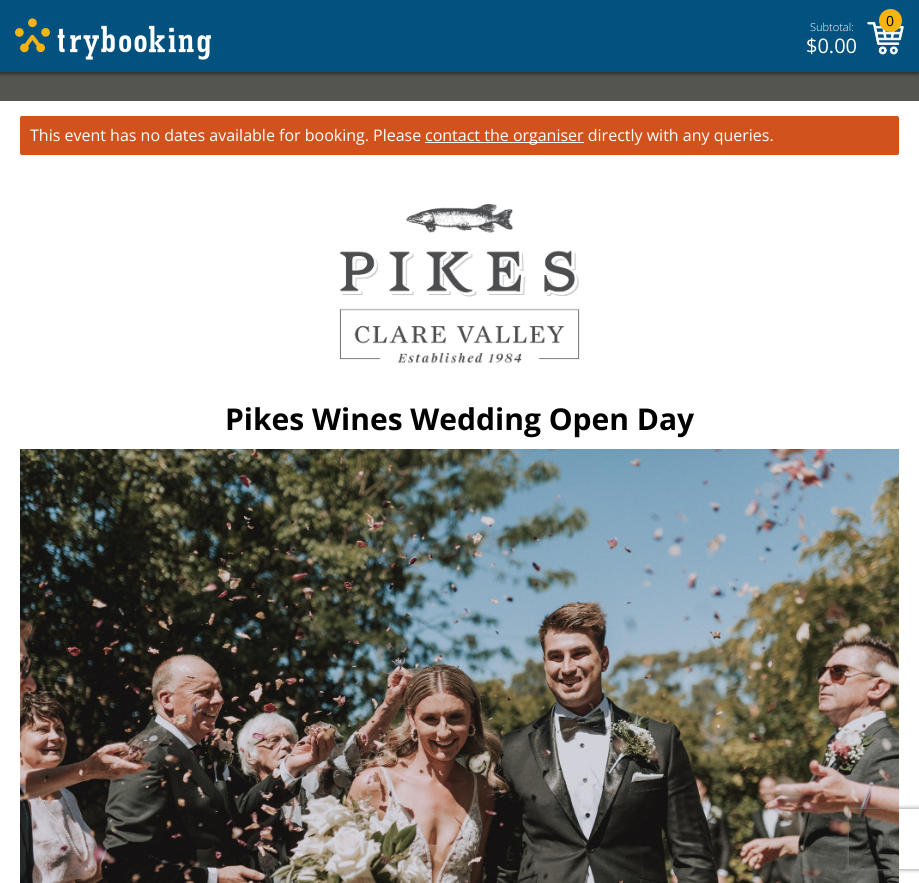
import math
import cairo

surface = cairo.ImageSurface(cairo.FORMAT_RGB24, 919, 883)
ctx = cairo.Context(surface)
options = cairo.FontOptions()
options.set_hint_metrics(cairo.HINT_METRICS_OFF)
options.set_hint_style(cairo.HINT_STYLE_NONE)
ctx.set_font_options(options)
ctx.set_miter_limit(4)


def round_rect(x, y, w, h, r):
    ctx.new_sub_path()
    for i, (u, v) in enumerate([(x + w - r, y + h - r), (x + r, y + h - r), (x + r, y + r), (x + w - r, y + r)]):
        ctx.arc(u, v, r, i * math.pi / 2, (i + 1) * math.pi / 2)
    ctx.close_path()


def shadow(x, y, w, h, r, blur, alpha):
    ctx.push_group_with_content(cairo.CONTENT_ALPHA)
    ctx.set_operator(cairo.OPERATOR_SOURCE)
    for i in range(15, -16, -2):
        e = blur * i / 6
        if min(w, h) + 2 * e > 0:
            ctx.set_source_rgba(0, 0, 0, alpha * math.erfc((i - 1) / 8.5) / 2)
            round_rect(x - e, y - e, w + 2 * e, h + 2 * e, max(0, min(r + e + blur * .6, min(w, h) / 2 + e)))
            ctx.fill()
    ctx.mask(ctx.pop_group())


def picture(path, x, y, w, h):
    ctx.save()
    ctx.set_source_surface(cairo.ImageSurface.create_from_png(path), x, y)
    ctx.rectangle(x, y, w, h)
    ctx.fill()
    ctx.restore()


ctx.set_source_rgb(0.329, 0.333, 0.314)
ctx.paint()
ctx.set_source_rgb(0, 0, 0)
shadow(0, 2, 919, 72, 0, 2, 0.5)
ctx.set_source_rgb(0.012, 0.318, 0.494)
ctx.rectangle(0, 0, 919, 72)
ctx.fill()
picture("img1.png", 15, 18, 196, 42)
ctx.select_font_face("Open Sans Light")
ctx.set_font_size(11)
ctx.set_source_rgb(1, 1, 1)
ctx.move_to(810, 31)
ctx.show_text("Subtotal:")
ctx.select_font_face("Open Sans")
ctx.set_font_size(20)
ctx.move_to(806, 53)
ctx.show_text("$0.00")
picture("img2.png", 867, 21, 37, 34)
ctx.set_source_rgb(0.965, 0.706, 0.075)
ctx.arc(890.5, 20.5, 11.5, 0, 2 * math.pi)
ctx.fill()
ctx.set_font_size(14)
ctx.set_source_rgb(0, 0, 0)
ctx.move_to(886, 26)
ctx.show_text("0")
ctx.set_source_rgb(1, 1, 1)
ctx.rectangle(0, 101, 919, 782)
ctx.fill()
ctx.set_source_rgb(0.82, 0.322, 0.114)
round_rect(20.5, 116.5, 878, 38, 1.5)
ctx.fill_preserve()
ctx.set_line_width(1)
ctx.stroke()
ctx.set_font_size(16)
ctx.set_source_rgb(1, 1, 1)
ctx.move_to(30, 141)
ctx.show_text("This event has no dates available for booking. Please")
ctx.rectangle(425, 142, 159, 1)
ctx.fill()
ctx.move_to(425, 141)
ctx.show_text("contact the organiser directly with any queries.")
picture("img3.png", 339, 203, 241, 161)
ctx.select_font_face("Open Sans", cairo.FONT_SLANT_NORMAL, cairo.FONT_WEIGHT_BOLD)
ctx.set_font_size(30)
ctx.set_source_rgb(0, 0, 0)
ctx.move_to(225, 430)
ctx.show_text("Pikes Wines Wedding Open Day")
picture("img4.png", 20, 449, 879, 434)
ctx.save()
ctx.set_fill_rule(cairo.FILL_RULE_EVEN_ODD)
ctx.new_path()
ctx.move_to(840, 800)
ctx.line_to(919, 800)
ctx.line_to(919, 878)
ctx.line_to(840, 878)
ctx.close_path()
ctx.move_to(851, 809)
ctx.line_to(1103, 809)
ctx.curve_to(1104, 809, 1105, 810, 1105, 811)
ctx.line_to(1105, 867)
ctx.curve_to(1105, 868, 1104, 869, 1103, 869)
ctx.line_to(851, 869)
ctx.curve_to(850, 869, 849, 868, 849, 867)
ctx.line_to(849, 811)
ctx.curve_to(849, 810, 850, 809, 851, 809)
ctx.close_path()
ctx.clip()
ctx.set_source_rgb(0.502, 0.502, 0.502)
shadow(849, 809, 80, 60, 2, 2.5, 1)
ctx.restore()
surface.write_to_png("page.png")
